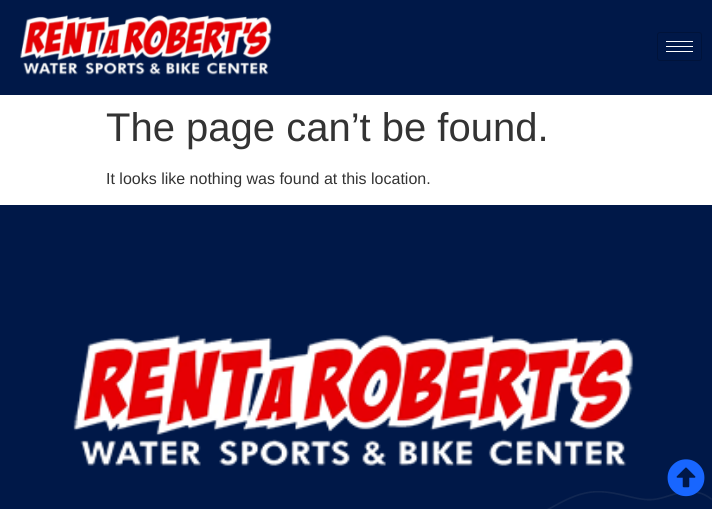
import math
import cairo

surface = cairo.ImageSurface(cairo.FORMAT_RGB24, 712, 509)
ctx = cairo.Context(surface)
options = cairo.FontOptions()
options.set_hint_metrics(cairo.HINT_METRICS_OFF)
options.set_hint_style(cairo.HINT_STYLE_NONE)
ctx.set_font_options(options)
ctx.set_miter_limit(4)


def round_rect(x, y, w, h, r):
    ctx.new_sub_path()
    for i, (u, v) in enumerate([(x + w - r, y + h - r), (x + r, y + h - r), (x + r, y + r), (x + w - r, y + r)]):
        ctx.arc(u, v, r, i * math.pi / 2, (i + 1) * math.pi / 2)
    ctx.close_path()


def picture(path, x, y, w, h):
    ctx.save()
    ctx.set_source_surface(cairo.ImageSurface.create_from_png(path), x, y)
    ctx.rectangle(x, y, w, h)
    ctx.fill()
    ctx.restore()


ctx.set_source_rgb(1, 1, 1)
ctx.paint()
ctx.set_source_rgb(0, 0.094, 0.282)
ctx.rectangle(0, 0, 712, 95)
ctx.fill()
picture("img1.png", 20, 15, 252, 60)
round_rect(657.5, 32.5, 44, 28, 2.5)
ctx.set_source_rgb(0, 0.075, 0.227)
ctx.set_line_width(1)
ctx.stroke()
ctx.set_source_rgb(1, 1, 1)
ctx.rectangle(666, 41, 27, 1)
ctx.fill()
ctx.rectangle(666, 46, 27, 1)
ctx.fill()
ctx.rectangle(666, 51, 27, 1)
ctx.fill()
ctx.select_font_face("Liberation Sans")
ctx.set_font_size(40)
ctx.set_source_rgb(0.2, 0.2, 0.2)
ctx.move_to(106, 141)
ctx.show_text("The page can’t be found.")
ctx.set_font_size(16)
ctx.move_to(106, 184)
ctx.show_text("It looks like nothing was found at this location.")
ctx.set_source_rgb(0, 0.094, 0.282)
ctx.rectangle(0, 205, 712, 304)
ctx.fill()
picture("img4.png", 547, 491, 165, 18)
picture("img2.png", 667, 459, 38, 38)
picture("img3.png", 73, 334, 561, 132)
surface.write_to_png("page.png")
